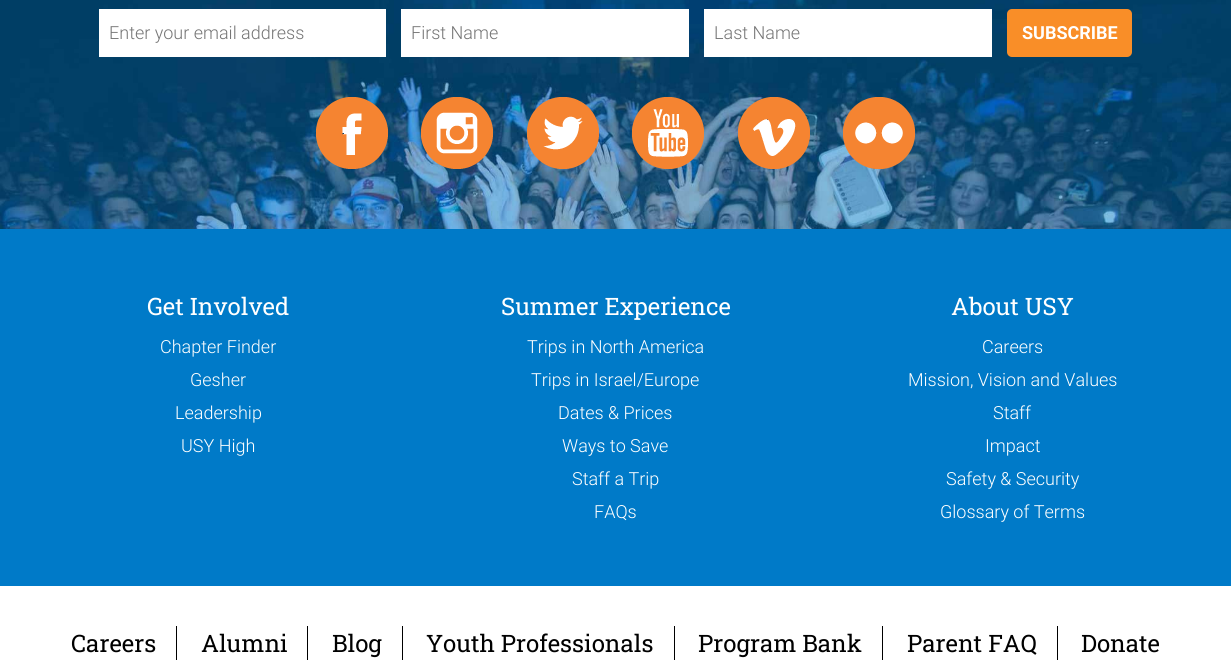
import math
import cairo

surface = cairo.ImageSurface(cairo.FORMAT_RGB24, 1231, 667)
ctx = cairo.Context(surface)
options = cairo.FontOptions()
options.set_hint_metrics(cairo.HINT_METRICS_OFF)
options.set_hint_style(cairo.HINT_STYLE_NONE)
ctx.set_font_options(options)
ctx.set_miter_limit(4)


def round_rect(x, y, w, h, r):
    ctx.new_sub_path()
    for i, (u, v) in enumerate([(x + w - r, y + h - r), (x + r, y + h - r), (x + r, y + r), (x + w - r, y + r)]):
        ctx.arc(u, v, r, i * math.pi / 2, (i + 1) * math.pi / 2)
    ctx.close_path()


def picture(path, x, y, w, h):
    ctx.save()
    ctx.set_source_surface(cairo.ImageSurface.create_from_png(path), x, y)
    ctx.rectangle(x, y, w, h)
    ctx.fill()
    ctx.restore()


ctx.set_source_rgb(1, 1, 1)
ctx.paint()
picture("img1.png", 0, 0, 1231, 229)
ctx.set_source_rgb(1, 1, 1)
ctx.rectangle(99, 9, 287, 48)
ctx.fill()
ctx.select_font_face("Roboto Light")
ctx.set_font_size(18)
ctx.set_source_rgb(0.459, 0.459, 0.459)
ctx.move_to(109, 39)
ctx.show_text("Enter your email address")
ctx.set_source_rgb(1, 1, 1)
ctx.rectangle(401, 9, 288, 48)
ctx.fill()
ctx.set_source_rgb(0.459, 0.459, 0.459)
ctx.move_to(411, 39)
ctx.show_text("First Name")
ctx.set_source_rgb(1, 1, 1)
ctx.rectangle(704, 9, 288, 48)
ctx.fill()
ctx.set_source_rgb(0.459, 0.459, 0.459)
ctx.move_to(714, 39)
ctx.show_text("Last Name")
ctx.set_source_rgb(0.973, 0.557, 0.157)
round_rect(1007, 9, 125, 48, 5)
ctx.fill()
ctx.select_font_face("Roboto", cairo.FONT_SLANT_NORMAL, cairo.FONT_WEIGHT_BOLD)
ctx.set_source_rgb(1, 1, 1)
ctx.move_to(1022, 39)
ctx.show_text("SUBSCRIBE")
picture("img2.png", 316, 97, 72, 72)
picture("img3.png", 421, 97, 72, 72)
picture("img4.png", 527, 97, 72, 72)
picture("img5.png", 632, 97, 72, 72)
picture("img6.png", 738, 97, 72, 72)
picture("img7.png", 843, 97, 72, 72)
ctx.set_source_rgb(0, 0.478, 0.784)
ctx.rectangle(0, 229, 1231, 357)
ctx.fill()
ctx.select_font_face("Roboto Slab")
ctx.set_font_size(24)
ctx.set_source_rgb(1, 1, 1)
ctx.move_to(147, 315)
ctx.show_text("Get Involved")
ctx.select_font_face("Roboto Light")
ctx.set_font_size(18)
ctx.move_to(160, 353)
ctx.show_text("Chapter Finder")
ctx.move_to(190, 386)
ctx.show_text("Gesher")
ctx.move_to(175, 419)
ctx.show_text("Leadership")
ctx.move_to(181, 452)
ctx.show_text("USY High")
ctx.select_font_face("Roboto Slab")
ctx.set_font_size(24)
ctx.move_to(501, 315)
ctx.show_text("Summer Experience")
ctx.select_font_face("Roboto Light")
ctx.set_font_size(18)
ctx.move_to(527, 353)
ctx.show_text("Trips in North America")
ctx.move_to(531, 386)
ctx.show_text("Trips in Israel/Europe")
ctx.move_to(558, 419)
ctx.show_text("Dates & Prices")
ctx.move_to(562, 452)
ctx.show_text("Ways to Save")
ctx.move_to(572, 485)
ctx.show_text("Staff a Trip")
ctx.move_to(594, 518)
ctx.show_text("FAQs")
ctx.select_font_face("Roboto Slab")
ctx.set_font_size(24)
ctx.move_to(951, 315)
ctx.show_text("About USY")
ctx.select_font_face("Roboto Light")
ctx.set_font_size(18)
ctx.move_to(982, 353)
ctx.show_text("Careers")
ctx.move_to(908, 386)
ctx.show_text("Mission, Vision and Values")
ctx.move_to(993, 419)
ctx.show_text("Staff")
ctx.move_to(985, 452)
ctx.show_text("Impact")
ctx.move_to(946, 485)
ctx.show_text("Safety & Security")
ctx.move_to(940, 518)
ctx.show_text("Glossary of Terms")
ctx.set_source_rgb(0, 0, 0)
ctx.rectangle(176, 626, 1, 34)
ctx.fill()
ctx.select_font_face("Roboto Slab")
ctx.set_font_size(24)
ctx.move_to(71, 652)
ctx.show_text("Careers")
ctx.rectangle(307, 626, 1, 34)
ctx.fill()
ctx.move_to(201, 652)
ctx.show_text("Alumni")
ctx.rectangle(402, 626, 1, 34)
ctx.fill()
ctx.move_to(332, 652)
ctx.show_text("Blog")
ctx.rectangle(674, 626, 1, 34)
ctx.fill()
ctx.move_to(426, 652)
ctx.show_text("Youth Professionals")
ctx.rectangle(882, 626, 1, 34)
ctx.fill()
ctx.move_to(698, 652)
ctx.show_text("Program Bank")
ctx.rectangle(1057, 626, 1, 34)
ctx.fill()
ctx.move_to(907, 652)
ctx.show_text("Parent FAQ")
ctx.move_to(1081, 652)
ctx.show_text("Donate")
surface.write_to_png("page.png")
